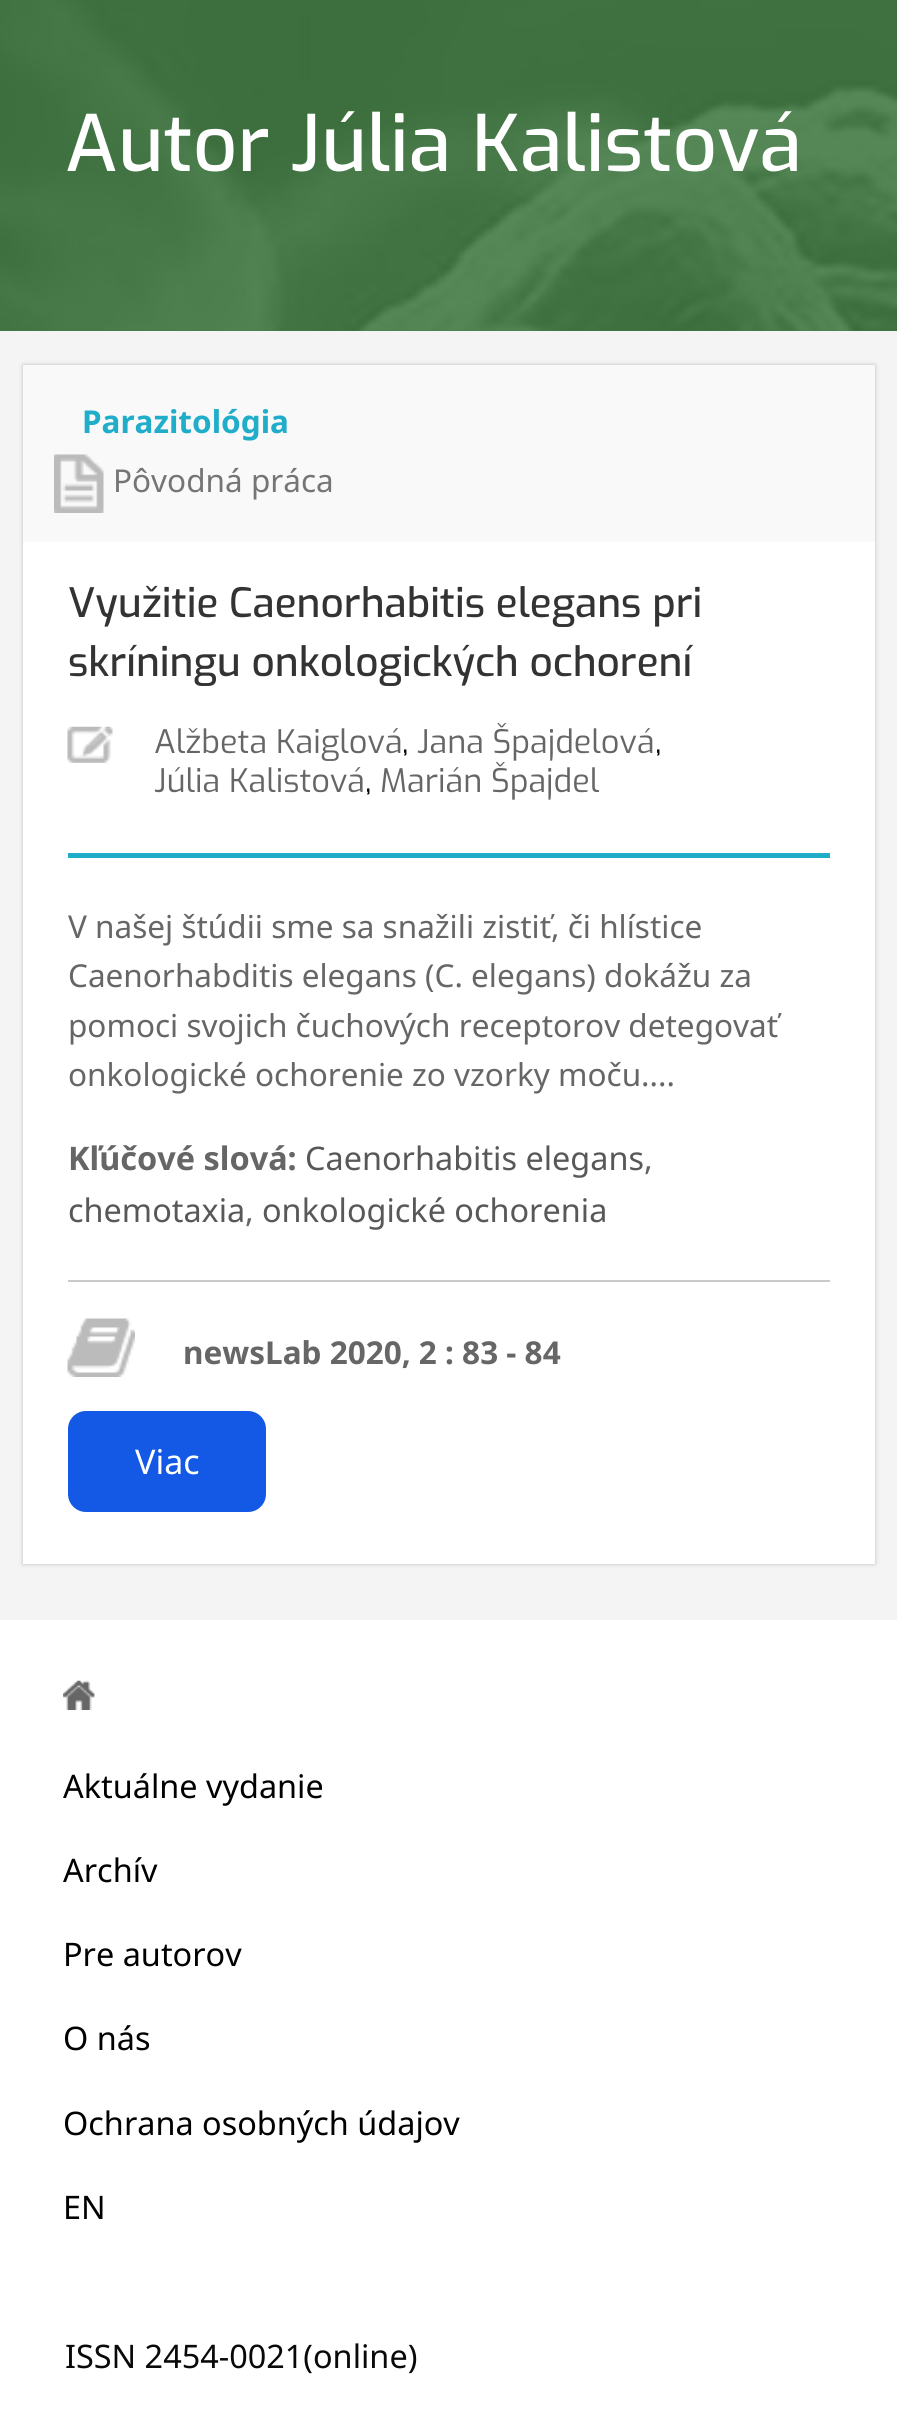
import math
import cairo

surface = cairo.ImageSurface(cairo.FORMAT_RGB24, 897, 2425)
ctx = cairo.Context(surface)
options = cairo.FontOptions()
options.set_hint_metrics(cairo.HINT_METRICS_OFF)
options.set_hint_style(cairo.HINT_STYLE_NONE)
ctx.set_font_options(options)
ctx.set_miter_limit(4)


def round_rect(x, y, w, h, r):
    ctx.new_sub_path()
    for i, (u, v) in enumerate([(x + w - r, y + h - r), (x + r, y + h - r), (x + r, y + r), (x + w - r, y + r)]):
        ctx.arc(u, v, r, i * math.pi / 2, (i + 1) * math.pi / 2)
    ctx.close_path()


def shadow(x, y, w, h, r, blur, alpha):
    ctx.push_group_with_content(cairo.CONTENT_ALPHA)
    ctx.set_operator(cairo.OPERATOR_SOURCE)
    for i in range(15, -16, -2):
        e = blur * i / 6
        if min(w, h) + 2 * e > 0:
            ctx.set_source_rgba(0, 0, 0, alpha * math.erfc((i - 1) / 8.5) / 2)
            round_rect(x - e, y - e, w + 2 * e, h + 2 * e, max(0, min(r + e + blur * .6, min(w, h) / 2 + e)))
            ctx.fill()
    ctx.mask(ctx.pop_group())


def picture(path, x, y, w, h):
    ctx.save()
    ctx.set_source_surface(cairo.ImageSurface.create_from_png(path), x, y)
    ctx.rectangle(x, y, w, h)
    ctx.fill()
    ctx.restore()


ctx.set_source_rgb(0.957, 0.957, 0.957)
ctx.paint()
ctx.set_source_rgb(0.259, 0.475, 0.267)
ctx.rectangle(0, 0, 897, 331)
ctx.fill()
picture("img1.png", 0, 0, 897, 331)
ctx.select_font_face("Exo Medium")
ctx.set_font_size(77.75)
ctx.set_source_rgb(1, 1, 1)
ctx.move_to(65, 171)
ctx.show_text("Autor Júlia Kalistová")
ctx.set_source_rgb(0.733, 0.733, 0.733)
shadow(23, 365, 852, 1199, 0, 2, 1)
ctx.set_source_rgb(1, 1, 1)
ctx.rectangle(23, 542, 852, 1022)
ctx.fill()
ctx.set_source_rgb(0.976, 0.976, 0.976)
ctx.rectangle(23, 365, 852, 177)
ctx.fill()
ctx.select_font_face("Noto Sans", cairo.FONT_SLANT_NORMAL, cairo.FONT_WEIGHT_BOLD)
ctx.set_font_size(31.5)
ctx.set_source_rgb(0.125, 0.678, 0.788)
ctx.move_to(82, 433)
ctx.show_text("Parazitológia")
picture("img2.png", 54, 454, 50, 59)
ctx.select_font_face("Noto Sans")
ctx.set_source_rgb(0.459, 0.459, 0.459)
ctx.move_to(113, 492)
ctx.show_text("Pôvodná práca")
ctx.select_font_face("Exo Medium")
ctx.set_font_size(40.5)
ctx.set_source_rgb(0.2, 0.2, 0.2)
ctx.move_to(68, 617)
ctx.show_text("Využitie Caenorhabitis elegans pri")
ctx.move_to(68, 676)
ctx.show_text("skríningu onkologických ochorení")
picture("img3.png", 67, 726, 46, 37)
ctx.select_font_face("Exo")
ctx.set_font_size(32.4)
ctx.set_source_rgb(0.4, 0.4, 0.4)
ctx.move_to(154, 753)
ctx.show_text("Alžbeta Kaiglová")
ctx.set_source_rgb(0.039, 0.039, 0.039)
ctx.move_to(402, 753)
ctx.show_text(",")
ctx.set_source_rgb(0.4, 0.4, 0.4)
ctx.move_to(417, 753)
ctx.show_text("Jana Špajdelová")
ctx.set_source_rgb(0.039, 0.039, 0.039)
ctx.move_to(655, 753)
ctx.show_text(",")
ctx.set_source_rgb(0.4, 0.4, 0.4)
ctx.move_to(154, 792)
ctx.show_text("Júlia Kalistová")
ctx.set_source_rgb(0.039, 0.039, 0.039)
ctx.move_to(365, 792)
ctx.show_text(",")
ctx.set_source_rgb(0.4, 0.4, 0.4)
ctx.move_to(380, 792)
ctx.show_text("Marián Špajdel")
ctx.set_source_rgb(0.125, 0.678, 0.788)
ctx.rectangle(68, 853, 762, 5)
ctx.fill()
ctx.select_font_face("Noto Sans")
ctx.set_font_size(31.5)
ctx.set_source_rgb(0.4, 0.4, 0.4)
ctx.move_to(68, 938)
ctx.show_text("V našej štúdii sme sa snažili zistiť, či hlístice")
ctx.move_to(68, 987)
ctx.show_text("Caenorhabditis elegans (C. elegans) dokážu za")
ctx.move_to(68, 1037)
ctx.show_text("pomoci svojich čuchových receptorov detegovať")
ctx.move_to(68, 1086)
ctx.show_text("onkologické ochorenie zo vzorky moču....")
ctx.select_font_face("Noto Sans", cairo.FONT_SLANT_NORMAL, cairo.FONT_WEIGHT_BOLD)
ctx.set_font_size(32.4)
ctx.move_to(68, 1170)
ctx.show_text("Kľúčové slová:")
ctx.select_font_face("Noto Sans")
ctx.set_source_rgb(0.345, 0.345, 0.345)
ctx.move_to(305, 1170)
ctx.show_text("Caenorhabitis elegans")
ctx.set_source_rgb(0.4, 0.4, 0.4)
ctx.move_to(644, 1170)
ctx.show_text(",")
ctx.set_source_rgb(0.345, 0.345, 0.345)
ctx.move_to(68, 1222)
ctx.show_text("chemotaxia")
ctx.set_source_rgb(0.4, 0.4, 0.4)
ctx.move_to(245, 1222)
ctx.show_text(",")
ctx.set_source_rgb(0.345, 0.345, 0.345)
ctx.move_to(262, 1222)
ctx.show_text("onkologické ochorenia")
ctx.set_source_rgb(0.792, 0.792, 0.792)
ctx.rectangle(68, 1280, 762, 2)
ctx.fill()
picture("img4.png", 67, 1318, 68, 59)
ctx.select_font_face("Noto Sans", cairo.FONT_SLANT_NORMAL, cairo.FONT_WEIGHT_BOLD)
ctx.set_font_size(31.5)
ctx.set_source_rgb(0.4, 0.4, 0.4)
ctx.move_to(183, 1364)
ctx.show_text("newsLab 2020, 2 : 83 - 84")
ctx.set_source_rgb(0.078, 0.349, 0.898)
round_rect(68, 1411, 198, 101, 18)
ctx.fill()
ctx.select_font_face("Noto Sans")
ctx.set_font_size(34)
ctx.set_source_rgb(1, 1, 1)
ctx.move_to(135, 1474)
ctx.show_text("Viac")
ctx.rectangle(0, 1620, 897, 805)
ctx.fill()
picture("img5.png", 63, 1680, 32, 30)
ctx.set_font_size(32.4)
ctx.set_source_rgb(0, 0, 0)
ctx.move_to(63, 1798)
ctx.show_text("Aktuálne vydanie")
ctx.move_to(63, 1882)
ctx.show_text("Archív")
ctx.move_to(63, 1966)
ctx.show_text("Pre autorov")
ctx.move_to(63, 2050)
ctx.show_text("O nás")
ctx.move_to(63, 2135)
ctx.show_text("Ochrana osobných údajov")
ctx.move_to(63, 2219)
ctx.show_text("EN")
ctx.set_source_rgb(0.039, 0.039, 0.039)
ctx.move_to(65, 2368)
ctx.show_text("ISSN 2454-0021(online)")
surface.write_to_png("page.png")
